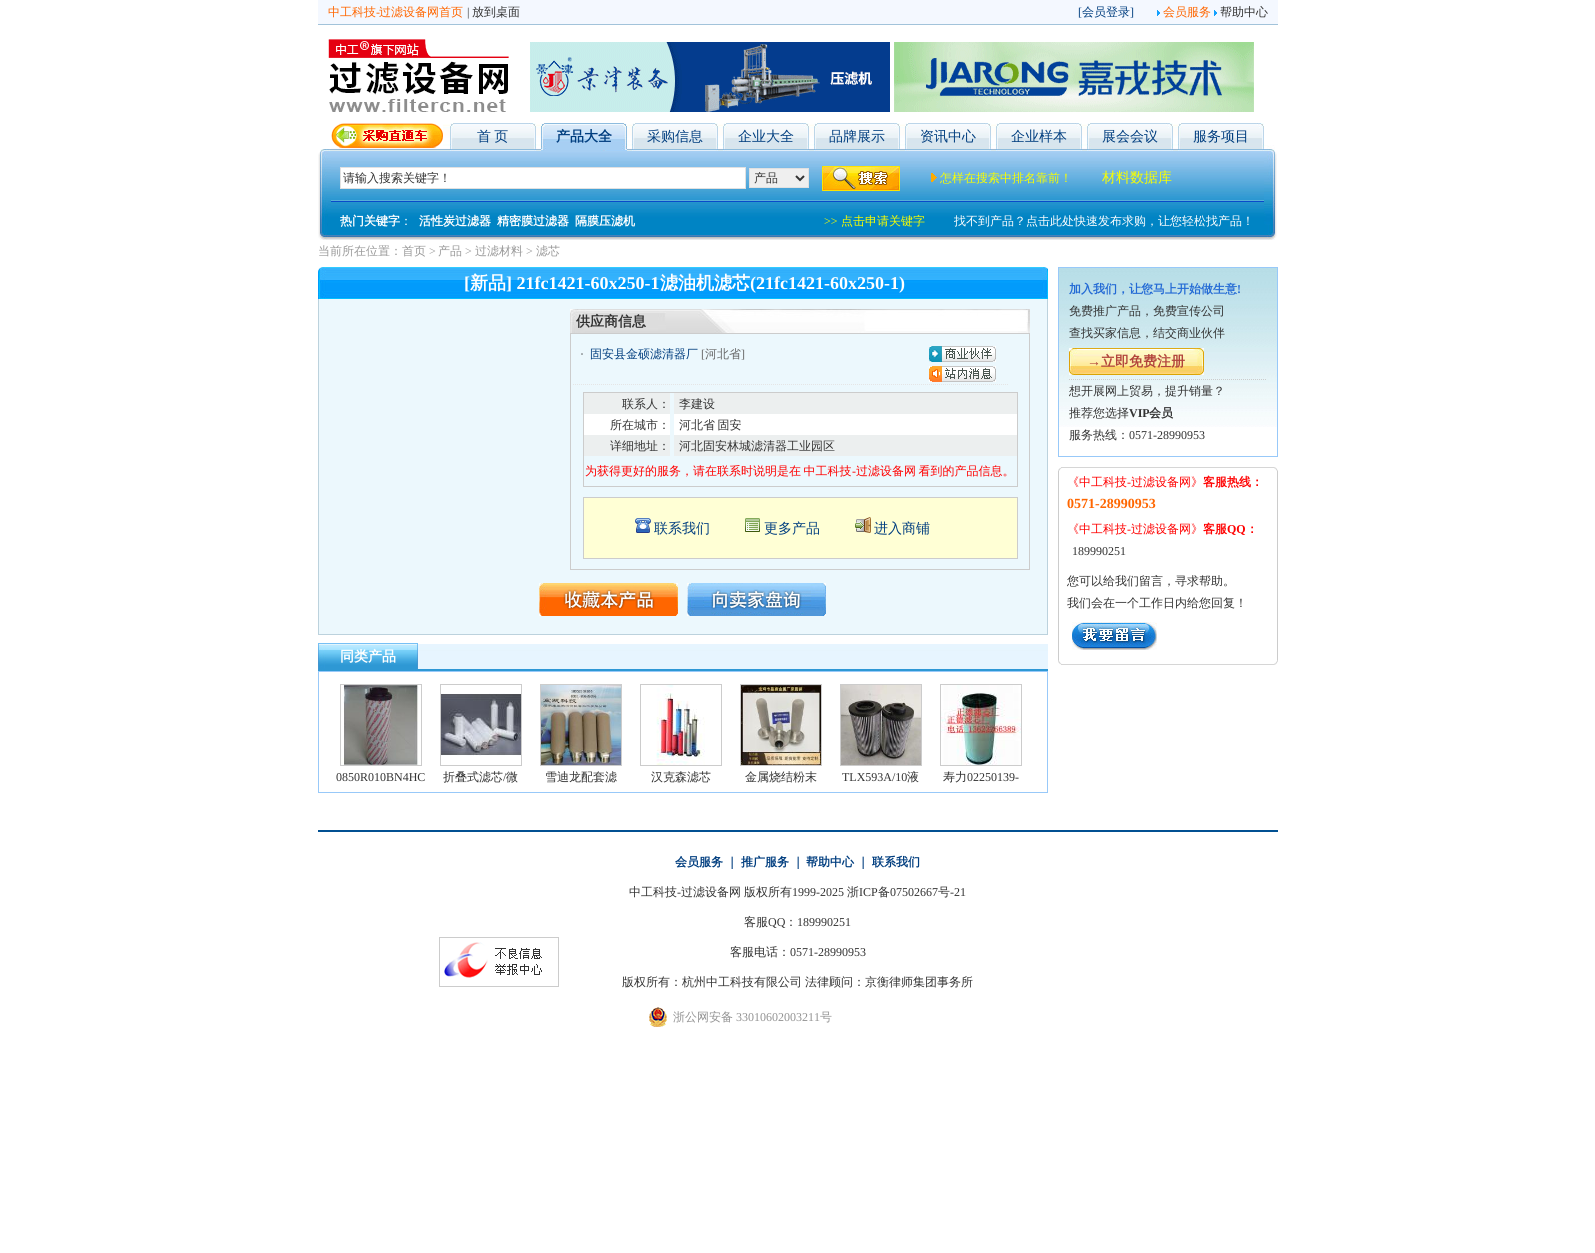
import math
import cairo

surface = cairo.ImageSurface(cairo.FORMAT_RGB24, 1595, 1253)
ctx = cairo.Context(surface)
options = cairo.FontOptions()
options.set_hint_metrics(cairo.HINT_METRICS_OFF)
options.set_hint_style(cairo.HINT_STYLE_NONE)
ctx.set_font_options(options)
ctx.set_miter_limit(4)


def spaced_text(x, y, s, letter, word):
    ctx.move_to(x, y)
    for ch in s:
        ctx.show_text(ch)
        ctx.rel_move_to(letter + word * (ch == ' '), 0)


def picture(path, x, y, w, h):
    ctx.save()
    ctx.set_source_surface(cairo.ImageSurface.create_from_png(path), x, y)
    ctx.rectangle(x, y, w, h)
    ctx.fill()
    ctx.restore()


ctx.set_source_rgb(1, 1, 1)
ctx.paint()
ctx.set_source_rgb(0.957, 0.969, 1)
ctx.rectangle(318, 0, 960, 24)
ctx.fill()
ctx.set_source_rgb(0.635, 0.765, 0.855)
ctx.rectangle(318, 24, 960, 1)
ctx.fill()
ctx.select_font_face("WenQuanYi Zen Hei Medium")
ctx.set_font_size(12)
ctx.set_source_rgb(1, 0.4, 0)
ctx.move_to(328, 16)
ctx.show_text("中工科技")
ctx.select_font_face("Liberation Serif")
ctx.move_to(376, 16)
ctx.show_text("-")
ctx.select_font_face("WenQuanYi Zen Hei Medium")
ctx.move_to(379, 16)
ctx.show_text("过滤设备网首页")
ctx.select_font_face("Liberation Serif")
ctx.set_source_rgb(0.2, 0.2, 0.2)
ctx.move_to(467, 16)
ctx.show_text("|")
ctx.select_font_face("WenQuanYi Zen Hei Medium")
ctx.move_to(472, 16)
ctx.show_text("放到桌面")
ctx.select_font_face("Liberation Serif")
ctx.set_source_rgb(0.004, 0.243, 0.498)
ctx.move_to(1078, 16)
ctx.show_text("[")
ctx.select_font_face("WenQuanYi Zen Hei Medium")
ctx.move_to(1082, 16)
ctx.show_text("会员登录")
ctx.select_font_face("Liberation Serif")
ctx.move_to(1130, 16)
ctx.show_text("]")
picture("img1.png", 1157, 10, 3, 6)
ctx.select_font_face("WenQuanYi Zen Hei Medium")
ctx.set_source_rgb(1, 0.4, 0)
ctx.move_to(1163, 16)
ctx.show_text("会员服务")
picture("img1.png", 1214, 10, 3, 6)
ctx.set_source_rgb(0.2, 0.2, 0.2)
ctx.move_to(1220, 16)
ctx.show_text("帮助中心")
picture("img2.png", 328, 39, 181, 73)
picture("img3.png", 530, 42, 360, 70)
picture("img4.png", 894, 42, 360, 70)
picture("img5.png", 331, 124, 119, 27)
picture("img6.png", 331, 123, 112, 25)
picture("img7.png", 450, 123, 86, 28)
ctx.set_font_size(14)
ctx.set_source_rgb(0.004, 0.243, 0.498)
spaced_text(477, 141, "首 页", 0, -1)
picture("img8.png", 536, 124, 5, 27)
picture("img9.png", 541, 123, 86, 28)
ctx.select_font_face("WenQuanYi Zen Hei", cairo.FONT_SLANT_NORMAL, cairo.FONT_WEIGHT_BOLD)
ctx.move_to(556, 141)
ctx.show_text("产品大全")
picture("img8.png", 627, 124, 5, 27)
picture("img7.png", 632, 123, 86, 28)
ctx.select_font_face("WenQuanYi Zen Hei Medium")
ctx.move_to(647, 141)
ctx.show_text("采购信息")
picture("img8.png", 718, 124, 5, 27)
picture("img7.png", 723, 123, 86, 28)
ctx.move_to(738, 141)
ctx.show_text("企业大全")
picture("img8.png", 809, 124, 5, 27)
picture("img7.png", 814, 123, 86, 28)
ctx.move_to(829, 141)
ctx.show_text("品牌展示")
picture("img8.png", 900, 124, 5, 27)
picture("img7.png", 905, 123, 86, 28)
ctx.move_to(920, 141)
ctx.show_text("资讯中心")
picture("img8.png", 991, 124, 5, 27)
picture("img7.png", 996, 123, 86, 28)
ctx.move_to(1011, 141)
ctx.show_text("企业样本")
picture("img8.png", 1082, 124, 5, 27)
picture("img7.png", 1087, 123, 86, 28)
ctx.move_to(1102, 141)
ctx.show_text("展会会议")
picture("img8.png", 1173, 124, 5, 27)
picture("img7.png", 1178, 123, 86, 28)
ctx.move_to(1193, 141)
ctx.show_text("服务项目")
picture("img10.png", 320, 149, 11, 2)
picture("img11.png", 1264, 145, 11, 6)
picture("img12.png", 318, 151, 13, 89)
picture("img13.png", 331, 151, 933, 89)
ctx.set_source_rgb(1, 1, 1)
ctx.rectangle(340.5, 167.5, 405, 21)
ctx.fill_preserve()
ctx.set_source_rgb(0.882, 0.882, 0.882)
ctx.set_line_width(1)
ctx.stroke()
ctx.set_font_size(12)
ctx.set_source_rgb(0.2, 0.2, 0.2)
ctx.move_to(343, 182)
ctx.show_text("请输入搜索关键字！")
ctx.set_source_rgb(0.937, 0.937, 0.937)
ctx.rectangle(749.5, 168.5, 59, 19)
ctx.fill_preserve()
ctx.set_source_rgb(0.882, 0.882, 0.882)
ctx.stroke()
ctx.new_path()
ctx.move_to(796, 176)
ctx.line_to(800, 180)
ctx.line_to(804, 176)
ctx.set_source_rgb(0.2, 0.2, 0.2)
ctx.set_line_width(2)
ctx.stroke()
ctx.move_to(754, 182)
ctx.show_text("产品")
picture("img14.png", 822, 166, 78, 25)
picture("img15.png", 931, 173, 6, 9)
ctx.set_source_rgb(0.973, 0.996, 0)
ctx.move_to(940, 182)
ctx.show_text("怎样在搜索中排名靠前！")
ctx.set_font_size(14)
ctx.move_to(1102, 182)
ctx.show_text("材料数据库")
ctx.select_font_face("WenQuanYi Zen Hei", cairo.FONT_SLANT_NORMAL, cairo.FONT_WEIGHT_BOLD)
ctx.set_font_size(12)
ctx.set_source_rgb(1, 1, 1)
ctx.move_to(340, 225)
ctx.show_text("热门关键字")
ctx.select_font_face("WenQuanYi Zen Hei Medium")
ctx.move_to(400, 225)
ctx.show_text("：")
ctx.select_font_face("WenQuanYi Zen Hei", cairo.FONT_SLANT_NORMAL, cairo.FONT_WEIGHT_BOLD)
ctx.move_to(419, 225)
ctx.show_text("活性炭过滤器")
ctx.move_to(497, 225)
ctx.show_text("精密膜过滤器")
ctx.move_to(575, 225)
ctx.show_text("隔膜压滤机")
ctx.select_font_face("Liberation Serif")
ctx.set_source_rgb(0.973, 0.996, 0)
ctx.move_to(824, 225)
ctx.show_text(">>")
ctx.select_font_face("WenQuanYi Zen Hei Medium")
ctx.move_to(841, 225)
ctx.show_text("点击申请关键字")
ctx.set_source_rgb(1, 1, 1)
ctx.move_to(954, 225)
ctx.show_text("找不到产品？点击此处快速发布求购，让您轻松找产品！")
picture("img16.png", 1264, 151, 13, 89)
ctx.set_source_rgb(0.6, 0.6, 0.6)
ctx.move_to(318, 255)
ctx.show_text("当前所在位置：首页")
ctx.select_font_face("Liberation Serif")
ctx.move_to(429, 255)
ctx.show_text(">")
ctx.select_font_face("WenQuanYi Zen Hei Medium")
ctx.move_to(438, 255)
ctx.show_text("产品")
ctx.select_font_face("Liberation Serif")
ctx.move_to(465, 255)
ctx.show_text(">")
ctx.select_font_face("WenQuanYi Zen Hei Medium")
ctx.move_to(475, 255)
ctx.show_text("过滤材料")
ctx.select_font_face("Liberation Serif")
ctx.move_to(526, 255)
ctx.show_text(">")
ctx.select_font_face("WenQuanYi Zen Hei Medium")
ctx.move_to(536, 255)
ctx.show_text("滤芯")
picture("img17.png", 326, 267, 2, 32)
picture("img18.png", 318, 267, 8, 32)
picture("img19.png", 328, 267, 714, 32)
ctx.select_font_face("Liberation Serif", cairo.FONT_SLANT_NORMAL, cairo.FONT_WEIGHT_BOLD)
ctx.set_font_size(18)
ctx.set_source_rgb(1, 1, 1)
ctx.move_to(464, 289)
ctx.show_text("[")
ctx.select_font_face("WenQuanYi Zen Hei", cairo.FONT_SLANT_NORMAL, cairo.FONT_WEIGHT_BOLD)
ctx.move_to(470, 289)
ctx.show_text("新品")
ctx.select_font_face("Liberation Serif", cairo.FONT_SLANT_NORMAL, cairo.FONT_WEIGHT_BOLD)
ctx.move_to(506, 289)
ctx.show_text("] 21fc1421-60x250-1")
ctx.select_font_face("WenQuanYi Zen Hei", cairo.FONT_SLANT_NORMAL, cairo.FONT_WEIGHT_BOLD)
ctx.move_to(660, 289)
ctx.show_text("滤油机滤芯")
ctx.select_font_face("Liberation Serif", cairo.FONT_SLANT_NORMAL, cairo.FONT_WEIGHT_BOLD)
ctx.move_to(750, 289)
ctx.show_text("(21fc1421-60x250-1)")
picture("img20.png", 1042, 267, 6, 32)
ctx.set_source_rgb(0.925, 0.969, 0.992)
ctx.rectangle(319, 299, 728, 335)
ctx.fill()
ctx.set_source_rgb(0.737, 0.824, 0.867)
ctx.rectangle(1047, 299, 1, 336)
ctx.fill()
ctx.rectangle(318, 634, 730, 1)
ctx.fill()
ctx.rectangle(318, 299, 1, 336)
ctx.fill()
picture("img21.png", 570, 309, 460, 25)
ctx.select_font_face("WenQuanYi Zen Hei", cairo.FONT_SLANT_NORMAL, cairo.FONT_WEIGHT_BOLD)
ctx.set_font_size(14)
ctx.set_source_rgb(0.2, 0.2, 0.2)
ctx.move_to(576, 326)
ctx.show_text("供应商信息")
ctx.set_source_rgb(0.8, 0.8, 0.8)
ctx.rectangle(1029, 334, 1, 236)
ctx.fill()
ctx.rectangle(570, 569, 460, 1)
ctx.fill()
ctx.rectangle(570, 334, 1, 236)
ctx.fill()
ctx.new_path()
ctx.move_to(573, 384.5)
ctx.line_to(1009, 384.5)
ctx.set_source_rgb(0.898, 0.898, 0.898)
ctx.set_line_width(1)
ctx.set_dash([1, 1])
ctx.stroke()
ctx.select_font_face("Liberation Serif")
ctx.set_font_size(12)
ctx.set_source_rgb(0.2, 0.2, 0.2)
ctx.move_to(580, 358)
ctx.show_text("·")
ctx.select_font_face("WenQuanYi Zen Hei Medium")
ctx.set_source_rgb(0.004, 0.243, 0.498)
ctx.move_to(590, 358)
ctx.show_text("固安县金硕滤清器厂")
ctx.select_font_face("Liberation Serif")
ctx.set_source_rgb(0.4, 0.4, 0.4)
ctx.move_to(701, 358)
ctx.show_text("[")
ctx.select_font_face("WenQuanYi Zen Hei Medium")
ctx.move_to(705, 358)
ctx.show_text("河北省")
ctx.select_font_face("Liberation Serif")
ctx.move_to(741, 358)
ctx.show_text("]")
picture("img22.png", 929, 346, 67, 16)
picture("img23.png", 929, 366, 67, 16)
ctx.rectangle(583.5, 392.5, 434, 94)
ctx.set_source_rgb(0.8, 0.8, 0.8)
ctx.set_dash([])
ctx.stroke()
ctx.set_source_rgb(0.925, 0.937, 0.937)
ctx.rectangle(584, 393, 86, 21)
ctx.fill()
ctx.select_font_face("WenQuanYi Zen Hei Medium")
ctx.set_source_rgb(0.2, 0.2, 0.2)
ctx.move_to(622, 408)
ctx.show_text("联系人：")
ctx.set_source_rgb(0.925, 0.937, 0.937)
ctx.rectangle(674, 393, 343, 21)
ctx.fill()
ctx.set_source_rgb(0.2, 0.2, 0.2)
ctx.move_to(679, 408)
ctx.show_text("李建设")
ctx.set_source_rgb(1, 1, 1)
ctx.rectangle(584, 414, 86, 21)
ctx.fill()
ctx.set_source_rgb(0.2, 0.2, 0.2)
ctx.move_to(610, 429)
ctx.show_text("所在城市：")
ctx.set_source_rgb(1, 1, 1)
ctx.rectangle(674, 414, 343, 21)
ctx.fill()
ctx.set_source_rgb(0.2, 0.2, 0.2)
spaced_text(679, 429, "河北省 固安", 0, -1)
ctx.set_source_rgb(0.925, 0.937, 0.937)
ctx.rectangle(584, 435, 86, 21)
ctx.fill()
ctx.set_source_rgb(0.2, 0.2, 0.2)
ctx.move_to(610, 450)
ctx.show_text("详细地址：")
ctx.set_source_rgb(0.925, 0.937, 0.937)
ctx.rectangle(674, 435, 343, 21)
ctx.fill()
ctx.set_source_rgb(0.2, 0.2, 0.2)
ctx.move_to(679, 450)
ctx.show_text("河北固安林城滤清器工业园区")
ctx.set_source_rgb(1, 0, 0)
spaced_text(585, 475, "为获得更好的服务，请在联系时说明是在 中工科技", 0, -1)
ctx.select_font_face("Liberation Serif")
ctx.move_to(852, 475)
ctx.show_text("-")
ctx.select_font_face("WenQuanYi Zen Hei Medium")
spaced_text(856, 475, "过滤设备网 看到的产品信息。", 0, -1)
ctx.rectangle(583.5, 497.5, 434, 61)
ctx.set_source_rgb(0.8, 0.8, 0.8)
ctx.stroke()
ctx.set_source_rgb(1, 1, 0.835)
ctx.rectangle(584, 498, 433, 60)
ctx.fill()
picture("img24.png", 635, 518, 16, 15)
ctx.set_font_size(14)
ctx.set_source_rgb(0.004, 0.243, 0.498)
ctx.move_to(654, 533)
ctx.show_text("联系我们")
picture("img25.png", 745, 518, 15, 14)
ctx.move_to(764, 533)
ctx.show_text("更多产品")
picture("img26.png", 855, 517, 16, 16)
ctx.move_to(874, 533)
ctx.show_text("进入商铺")
picture("img27.png", 539, 583, 139, 33)
picture("img28.png", 687, 583, 139, 33)
picture("img29.png", 318, 643, 100, 28)
ctx.select_font_face("WenQuanYi Zen Hei", cairo.FONT_SLANT_NORMAL, cairo.FONT_WEIGHT_BOLD)
ctx.set_source_rgb(1, 1, 1)
ctx.move_to(340, 661)
ctx.show_text("同类产品")
picture("img30.png", 418, 644, 630, 27)
ctx.rectangle(318.5, 671.5, 729, 121)
ctx.set_source_rgb(0.596, 0.788, 0.976)
ctx.stroke()
ctx.rectangle(340.5, 684.5, 81, 81)
ctx.set_source_rgb(0.8, 0.8, 0.8)
ctx.stroke()
picture("img31.png", 341, 685, 78, 80)
ctx.select_font_face("Liberation Serif")
ctx.set_font_size(12)
ctx.set_source_rgb(0.2, 0.2, 0.2)
ctx.move_to(336, 781)
ctx.show_text("0850R010BN4HC")
ctx.rectangle(440.5, 684.5, 81, 81)
ctx.set_source_rgb(0.8, 0.8, 0.8)
ctx.stroke()
picture("img32.png", 441, 693, 80, 63)
ctx.select_font_face("WenQuanYi Zen Hei Medium")
ctx.set_source_rgb(0.2, 0.2, 0.2)
ctx.move_to(443, 781)
ctx.show_text("折叠式滤芯")
ctx.select_font_face("Liberation Serif")
ctx.move_to(503, 781)
ctx.show_text("/")
ctx.select_font_face("WenQuanYi Zen Hei Medium")
ctx.move_to(506, 781)
ctx.show_text("微")
ctx.rectangle(540.5, 684.5, 81, 81)
ctx.set_source_rgb(0.8, 0.8, 0.8)
ctx.stroke()
picture("img33.png", 541, 685, 80, 80)
ctx.set_source_rgb(0.2, 0.2, 0.2)
ctx.move_to(545, 781)
ctx.show_text("雪迪龙配套滤")
ctx.rectangle(640.5, 684.5, 81, 81)
ctx.set_source_rgb(0.8, 0.8, 0.8)
ctx.stroke()
picture("img34.png", 656, 685, 49, 80)
ctx.set_source_rgb(0.2, 0.2, 0.2)
ctx.move_to(651, 781)
ctx.show_text("汉克森滤芯")
ctx.rectangle(740.5, 684.5, 81, 81)
ctx.set_source_rgb(0.8, 0.8, 0.8)
ctx.stroke()
picture("img35.png", 741, 685, 80, 80)
ctx.set_source_rgb(0.2, 0.2, 0.2)
ctx.move_to(745, 781)
ctx.show_text("金属烧结粉末")
ctx.rectangle(840.5, 684.5, 81, 81)
ctx.set_source_rgb(0.8, 0.8, 0.8)
ctx.stroke()
picture("img36.png", 841, 685, 80, 80)
ctx.select_font_face("Liberation Serif")
ctx.set_source_rgb(0.2, 0.2, 0.2)
ctx.move_to(842, 781)
ctx.show_text("TLX593A/10")
ctx.select_font_face("WenQuanYi Zen Hei Medium")
ctx.move_to(907, 781)
ctx.show_text("液")
ctx.rectangle(940.5, 684.5, 81, 81)
ctx.set_source_rgb(0.8, 0.8, 0.8)
ctx.stroke()
picture("img37.png", 941, 685, 80, 80)
ctx.set_source_rgb(0.2, 0.2, 0.2)
ctx.move_to(943, 781)
ctx.show_text("寿力")
ctx.select_font_face("Liberation Serif")
ctx.move_to(967, 781)
ctx.show_text("02250139-")
ctx.rectangle(1058.5, 267.5, 219, 189)
ctx.set_source_rgb(0.596, 0.788, 0.976)
ctx.stroke()
picture("img38.png", 1059, 268, 218, 159)
ctx.select_font_face("WenQuanYi Zen Hei", cairo.FONT_SLANT_NORMAL, cairo.FONT_WEIGHT_BOLD)
ctx.set_source_rgb(0.137, 0.416, 0.835)
ctx.move_to(1069, 293)
ctx.show_text("加入我们，让您马上开始做生意")
ctx.select_font_face("Liberation Serif", cairo.FONT_SLANT_NORMAL, cairo.FONT_WEIGHT_BOLD)
ctx.move_to(1237, 293)
ctx.show_text("!")
ctx.select_font_face("WenQuanYi Zen Hei Medium")
ctx.set_source_rgb(0.2, 0.2, 0.2)
ctx.move_to(1069, 315)
ctx.show_text("免费推广产品，免费宣传公司")
ctx.move_to(1069, 337)
ctx.show_text("查找买家信息，结交商业伙伴")
ctx.new_path()
ctx.move_to(1069, 379.5)
ctx.line_to(1267, 379.5)
ctx.set_source_rgb(0.8, 0.8, 0.8)
ctx.set_dash([1, 1])
ctx.stroke()
picture("img39.png", 1069, 348, 135, 27)
ctx.select_font_face("Liberation Serif", cairo.FONT_SLANT_NORMAL, cairo.FONT_WEIGHT_BOLD)
ctx.set_font_size(14)
ctx.set_source_rgb(0.698, 0.267, 0.235)
ctx.move_to(1087, 366)
ctx.show_text("→")
ctx.select_font_face("WenQuanYi Zen Hei", cairo.FONT_SLANT_NORMAL, cairo.FONT_WEIGHT_BOLD)
ctx.move_to(1101, 366)
ctx.show_text("立即免费注册")
ctx.select_font_face("WenQuanYi Zen Hei Medium")
ctx.set_font_size(12)
ctx.set_source_rgb(0.2, 0.2, 0.2)
ctx.move_to(1069, 395)
ctx.show_text("想开展网上贸易，提升销量？")
ctx.move_to(1069, 417)
ctx.show_text("推荐您选择")
ctx.select_font_face("Liberation Serif", cairo.FONT_SLANT_NORMAL, cairo.FONT_WEIGHT_BOLD)
ctx.move_to(1129, 417)
ctx.show_text("VIP")
ctx.select_font_face("WenQuanYi Zen Hei", cairo.FONT_SLANT_NORMAL, cairo.FONT_WEIGHT_BOLD)
ctx.move_to(1149, 417)
ctx.show_text("会员")
ctx.select_font_face("WenQuanYi Zen Hei Medium")
ctx.move_to(1069, 439)
ctx.show_text("服务热线：")
ctx.select_font_face("Liberation Serif")
ctx.move_to(1129, 439)
ctx.show_text("0571-28990953")
picture("img40.png", 1058, 467, 220, 4)
ctx.set_source_rgb(0.8, 0.8, 0.8)
ctx.rectangle(1277, 471, 1, 189)
ctx.fill()
ctx.rectangle(1058, 471, 1, 189)
ctx.fill()
ctx.select_font_face("WenQuanYi Zen Hei Medium")
ctx.set_source_rgb(1, 0, 0)
ctx.move_to(1067, 486)
ctx.show_text("《中工科技")
ctx.select_font_face("Liberation Serif")
ctx.move_to(1127, 486)
ctx.show_text("-")
ctx.select_font_face("WenQuanYi Zen Hei Medium")
ctx.move_to(1131, 486)
ctx.show_text("过滤设备网》")
ctx.select_font_face("WenQuanYi Zen Hei", cairo.FONT_SLANT_NORMAL, cairo.FONT_WEIGHT_BOLD)
ctx.move_to(1203, 486)
ctx.show_text("客服热线：")
ctx.select_font_face("Liberation Serif", cairo.FONT_SLANT_NORMAL, cairo.FONT_WEIGHT_BOLD)
ctx.set_font_size(14)
ctx.set_source_rgb(1, 0.4, 0)
ctx.move_to(1067, 508)
ctx.show_text("0571-28990953")
ctx.select_font_face("WenQuanYi Zen Hei Medium")
ctx.set_font_size(12)
ctx.set_source_rgb(1, 0, 0)
ctx.move_to(1067, 533)
ctx.show_text("《中工科技")
ctx.select_font_face("Liberation Serif")
ctx.move_to(1127, 533)
ctx.show_text("-")
ctx.select_font_face("WenQuanYi Zen Hei Medium")
ctx.move_to(1131, 533)
ctx.show_text("过滤设备网》")
ctx.select_font_face("WenQuanYi Zen Hei", cairo.FONT_SLANT_NORMAL, cairo.FONT_WEIGHT_BOLD)
ctx.move_to(1203, 533)
ctx.show_text("客服")
ctx.select_font_face("Liberation Serif", cairo.FONT_SLANT_NORMAL, cairo.FONT_WEIGHT_BOLD)
ctx.move_to(1227, 533)
ctx.show_text("QQ")
ctx.select_font_face("WenQuanYi Zen Hei", cairo.FONT_SLANT_NORMAL, cairo.FONT_WEIGHT_BOLD)
ctx.move_to(1246, 533)
ctx.show_text("：")
ctx.select_font_face("Liberation Serif")
ctx.set_source_rgb(0.2, 0.2, 0.2)
ctx.move_to(1072, 555)
ctx.show_text("189990251")
ctx.select_font_face("WenQuanYi Zen Hei Medium")
ctx.move_to(1067, 585)
ctx.show_text("您可以给我们留言，寻求帮助。")
ctx.move_to(1067, 607)
ctx.show_text("我们会在一个工作日内给您回复！")
picture("img41.png", 1072, 622, 85, 28)
picture("img42.png", 1058, 660, 220, 5)
ctx.set_source_rgb(0.004, 0.314, 0.573)
ctx.rectangle(318, 830, 960, 2)
ctx.fill()
ctx.select_font_face("WenQuanYi Zen Hei", cairo.FONT_SLANT_NORMAL, cairo.FONT_WEIGHT_BOLD)
ctx.set_source_rgb(0.004, 0.243, 0.498)
ctx.move_to(675, 866)
ctx.show_text("会员服务")
ctx.move_to(726, 866)
ctx.show_text("｜")
ctx.move_to(741, 866)
ctx.show_text("推广服务")
ctx.move_to(792, 866)
ctx.show_text("｜")
ctx.move_to(806, 866)
ctx.show_text("帮助中心")
ctx.move_to(857, 866)
ctx.show_text("｜")
ctx.move_to(872, 866)
ctx.show_text("联系我们")
ctx.select_font_face("WenQuanYi Zen Hei Medium")
ctx.set_source_rgb(0.2, 0.2, 0.2)
ctx.move_to(629, 896)
ctx.show_text("中工科技")
ctx.select_font_face("Liberation Serif")
ctx.move_to(677, 896)
ctx.show_text("-")
ctx.select_font_face("WenQuanYi Zen Hei Medium")
ctx.move_to(681, 896)
ctx.show_text("过滤设备网")
ctx.move_to(744, 896)
ctx.show_text("版权所有")
ctx.select_font_face("Liberation Serif")
ctx.move_to(792, 896)
ctx.show_text("1999-2025")
ctx.select_font_face("WenQuanYi Zen Hei Medium")
ctx.move_to(847, 896)
ctx.show_text("浙")
ctx.select_font_face("Liberation Serif")
ctx.move_to(859, 896)
ctx.show_text("ICP")
ctx.select_font_face("WenQuanYi Zen Hei Medium")
ctx.move_to(878, 896)
ctx.show_text("备")
ctx.select_font_face("Liberation Serif")
ctx.move_to(890, 896)
ctx.show_text("07502667")
ctx.select_font_face("WenQuanYi Zen Hei Medium")
ctx.move_to(938, 896)
ctx.show_text("号")
ctx.select_font_face("Liberation Serif")
ctx.move_to(950, 896)
ctx.show_text("-21")
ctx.select_font_face("WenQuanYi Zen Hei Medium")
ctx.move_to(744, 926)
ctx.show_text("客服")
ctx.select_font_face("Liberation Serif")
ctx.move_to(768, 926)
ctx.show_text("QQ")
ctx.select_font_face("WenQuanYi Zen Hei Medium")
ctx.move_to(785, 926)
ctx.show_text("：")
ctx.select_font_face("Liberation Serif")
ctx.move_to(797, 926)
ctx.show_text("189990251")
ctx.rectangle(439.5, 937.5, 119, 49)
ctx.set_source_rgb(0.8, 0.8, 0.8)
ctx.set_dash([])
ctx.stroke()
picture("img43.png", 444, 942, 98, 36)
ctx.select_font_face("WenQuanYi Zen Hei Medium")
ctx.set_source_rgb(0.2, 0.2, 0.2)
ctx.move_to(730, 956)
ctx.show_text("客服电话：")
ctx.select_font_face("Liberation Serif")
ctx.move_to(790, 956)
ctx.show_text("0571-28990953")
ctx.select_font_face("WenQuanYi Zen Hei Medium")
ctx.move_to(622, 986)
ctx.show_text("版权所有：杭州中工科技有限公司")
ctx.move_to(805, 986)
ctx.show_text("法律顾问：京衡律师集团事务所")
picture("img44.png", 649, 1007, 18, 20)
ctx.set_source_rgb(0.576, 0.576, 0.576)
ctx.move_to(673, 1021)
ctx.show_text("浙公网安备")
ctx.select_font_face("Liberation Serif")
ctx.move_to(736, 1021)
ctx.show_text("33010602003211")
ctx.select_font_face("WenQuanYi Zen Hei Medium")
ctx.move_to(820, 1021)
ctx.show_text("号")
surface.write_to_png("page.png")
